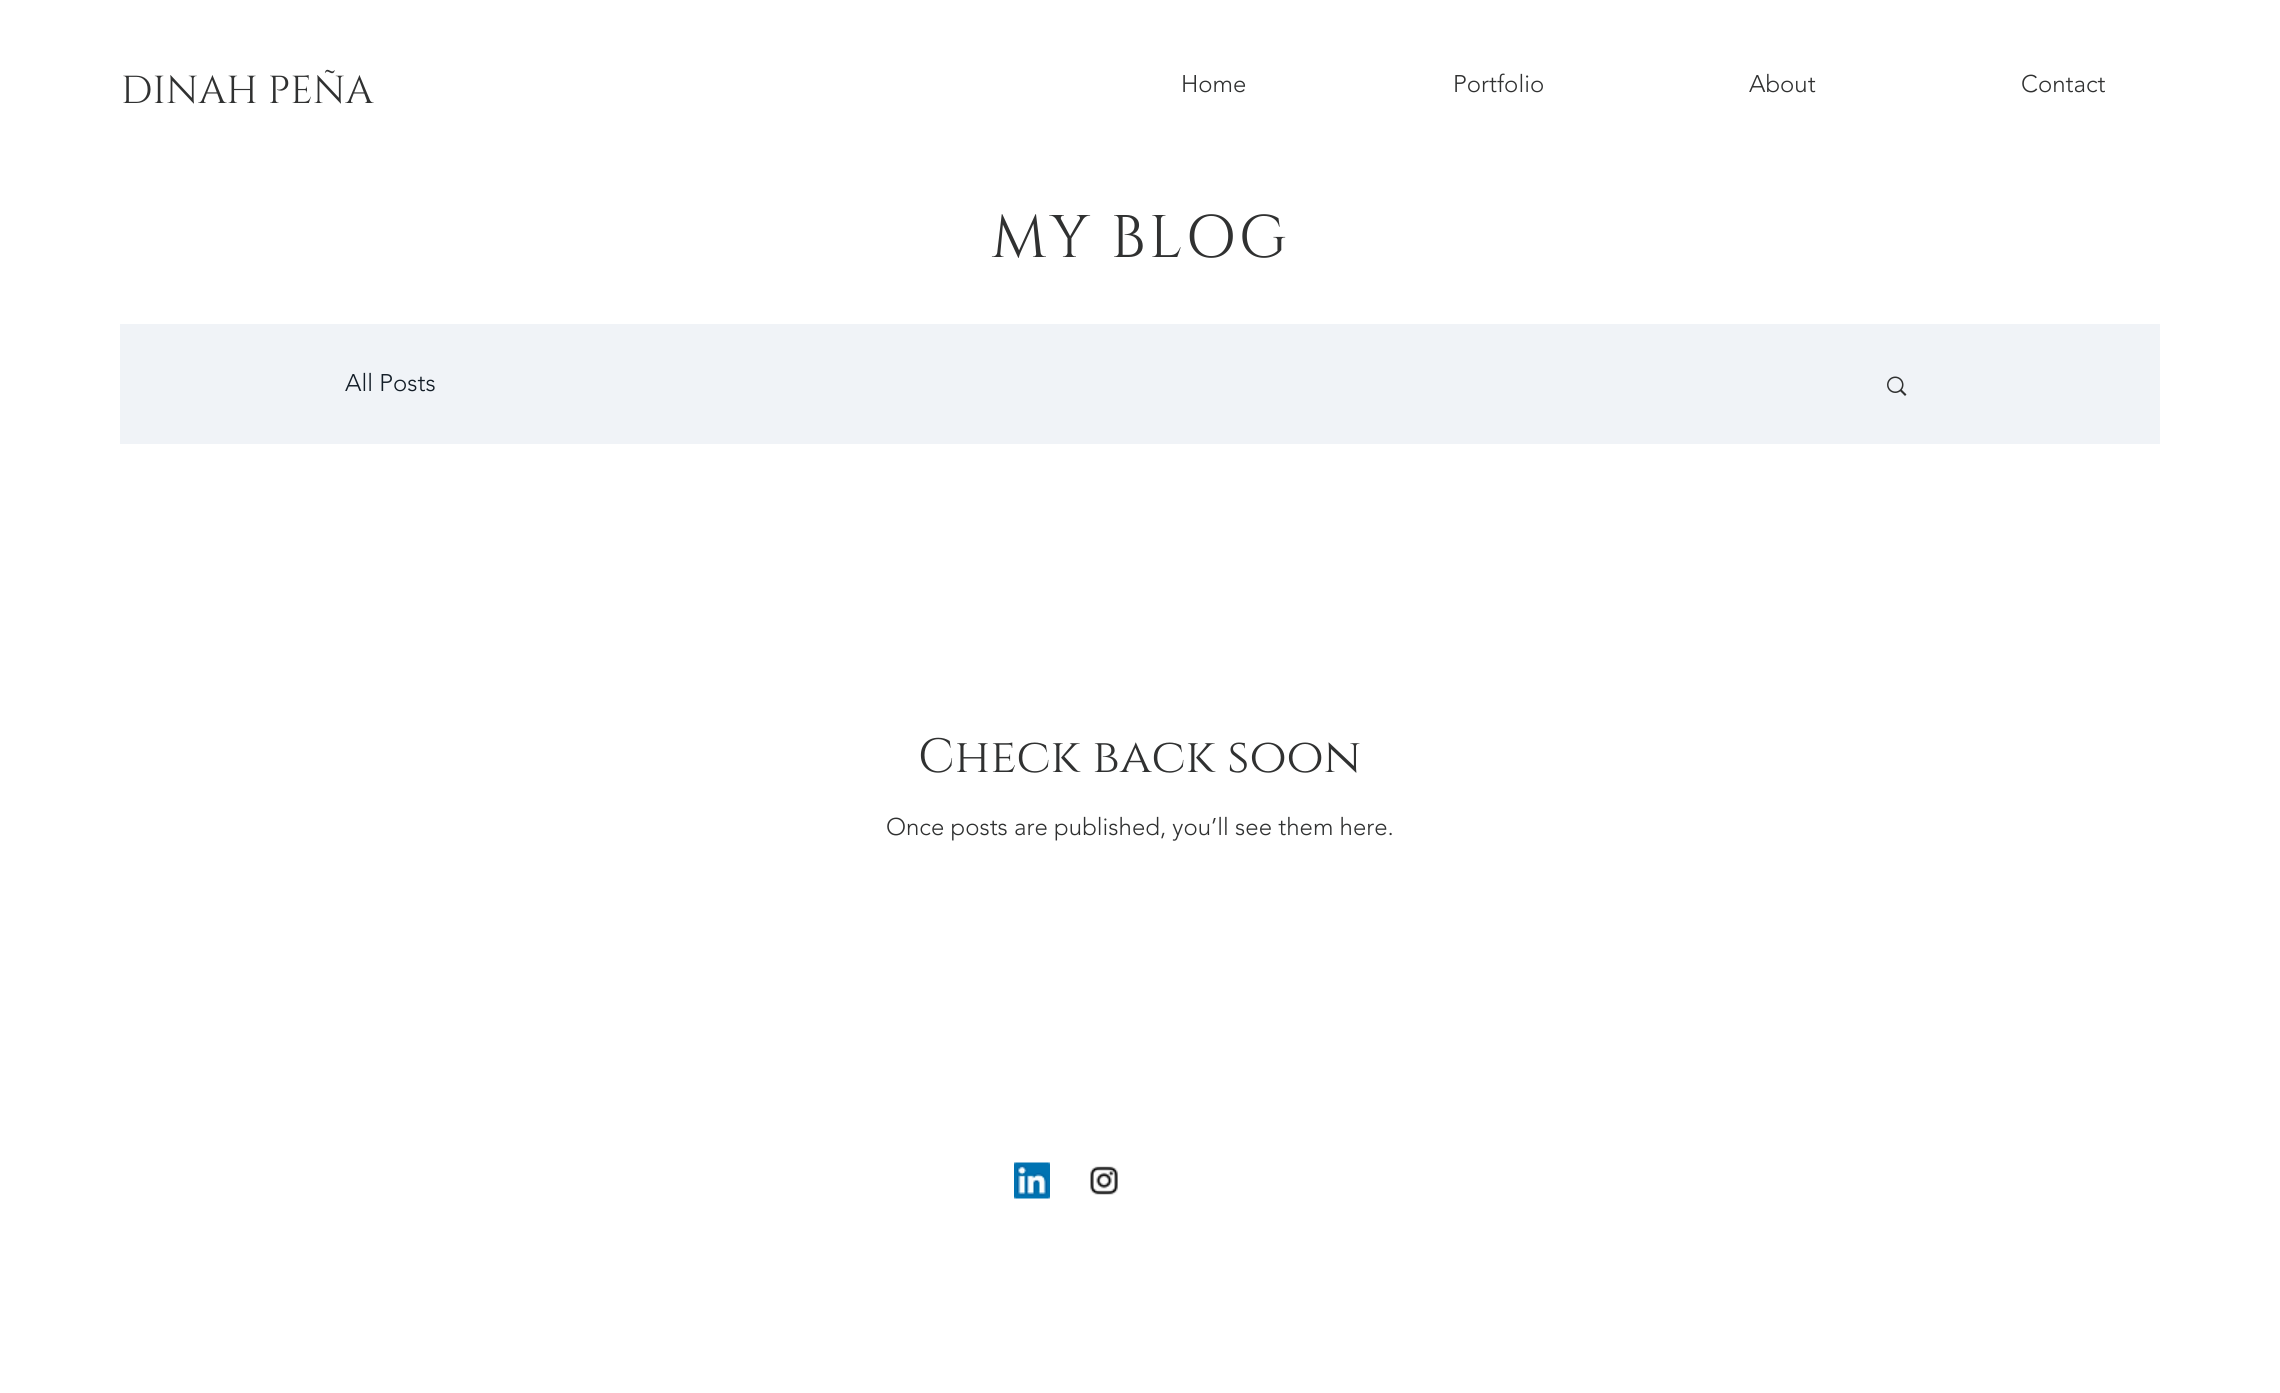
import math
import cairo

surface = cairo.ImageSurface(cairo.FORMAT_RGB24, 2280, 1393)
ctx = cairo.Context(surface)
options = cairo.FontOptions()
options.set_hint_metrics(cairo.HINT_METRICS_OFF)
options.set_hint_style(cairo.HINT_STYLE_NONE)
ctx.set_font_options(options)
ctx.set_miter_limit(4)


def spaced_text(x, y, s, letter, word):
    ctx.move_to(x, y)
    for ch in s:
        ctx.show_text(ch)
        ctx.rel_move_to(letter + word * (ch == ' '), 0)


def picture(path, x, y, w, h):
    ctx.save()
    ctx.set_source_surface(cairo.ImageSurface.create_from_png(path), x, y)
    ctx.rectangle(x, y, w, h)
    ctx.fill()
    ctx.restore()


ctx.set_source_rgb(1, 1, 1)
ctx.paint()
ctx.select_font_face("Cinzel")
ctx.set_font_size(39)
ctx.set_source_rgb(0.188, 0.192, 0.192)
ctx.move_to(121, 103)
ctx.show_text("DINAH PEÑA")
ctx.select_font_face("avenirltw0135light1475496 Light")
ctx.set_font_size(24)
ctx.move_to(1181, 92)
ctx.show_text("Home")
ctx.move_to(1453, 92)
ctx.show_text("Portfolio")
ctx.move_to(1749, 92)
ctx.show_text("About")
ctx.move_to(2021, 92)
ctx.show_text("Contact")
ctx.select_font_face("Cinzel")
ctx.set_font_size(60)
spaced_text(991, 257, "MY BLOG", 3, 0)
ctx.set_source_rgb(0.941, 0.953, 0.965)
ctx.rectangle(120, 324, 2040, 120)
ctx.fill()
ctx.select_font_face("avenirltw0135light1475496 Light")
ctx.set_font_size(24)
ctx.set_source_rgb(0.078, 0.114, 0.153)
ctx.move_to(345, 391)
ctx.show_text("All Posts")
picture("img1.png", 1887, 376, 20, 20)
ctx.select_font_face("Cinzel")
ctx.set_font_size(48)
ctx.set_source_rgb(0.188, 0.192, 0.192)
ctx.move_to(918, 772)
ctx.show_text("Check back soon")
ctx.select_font_face("avenirltw0135light1475496 Light")
ctx.set_font_size(24)
ctx.move_to(886, 835)
ctx.show_text("Once posts are published, you’ll see them here.")
picture("img2.png", 1014, 1162, 36, 37)
picture("img3.png", 1090, 1166, 28, 29)
surface.write_to_png("page.png")
